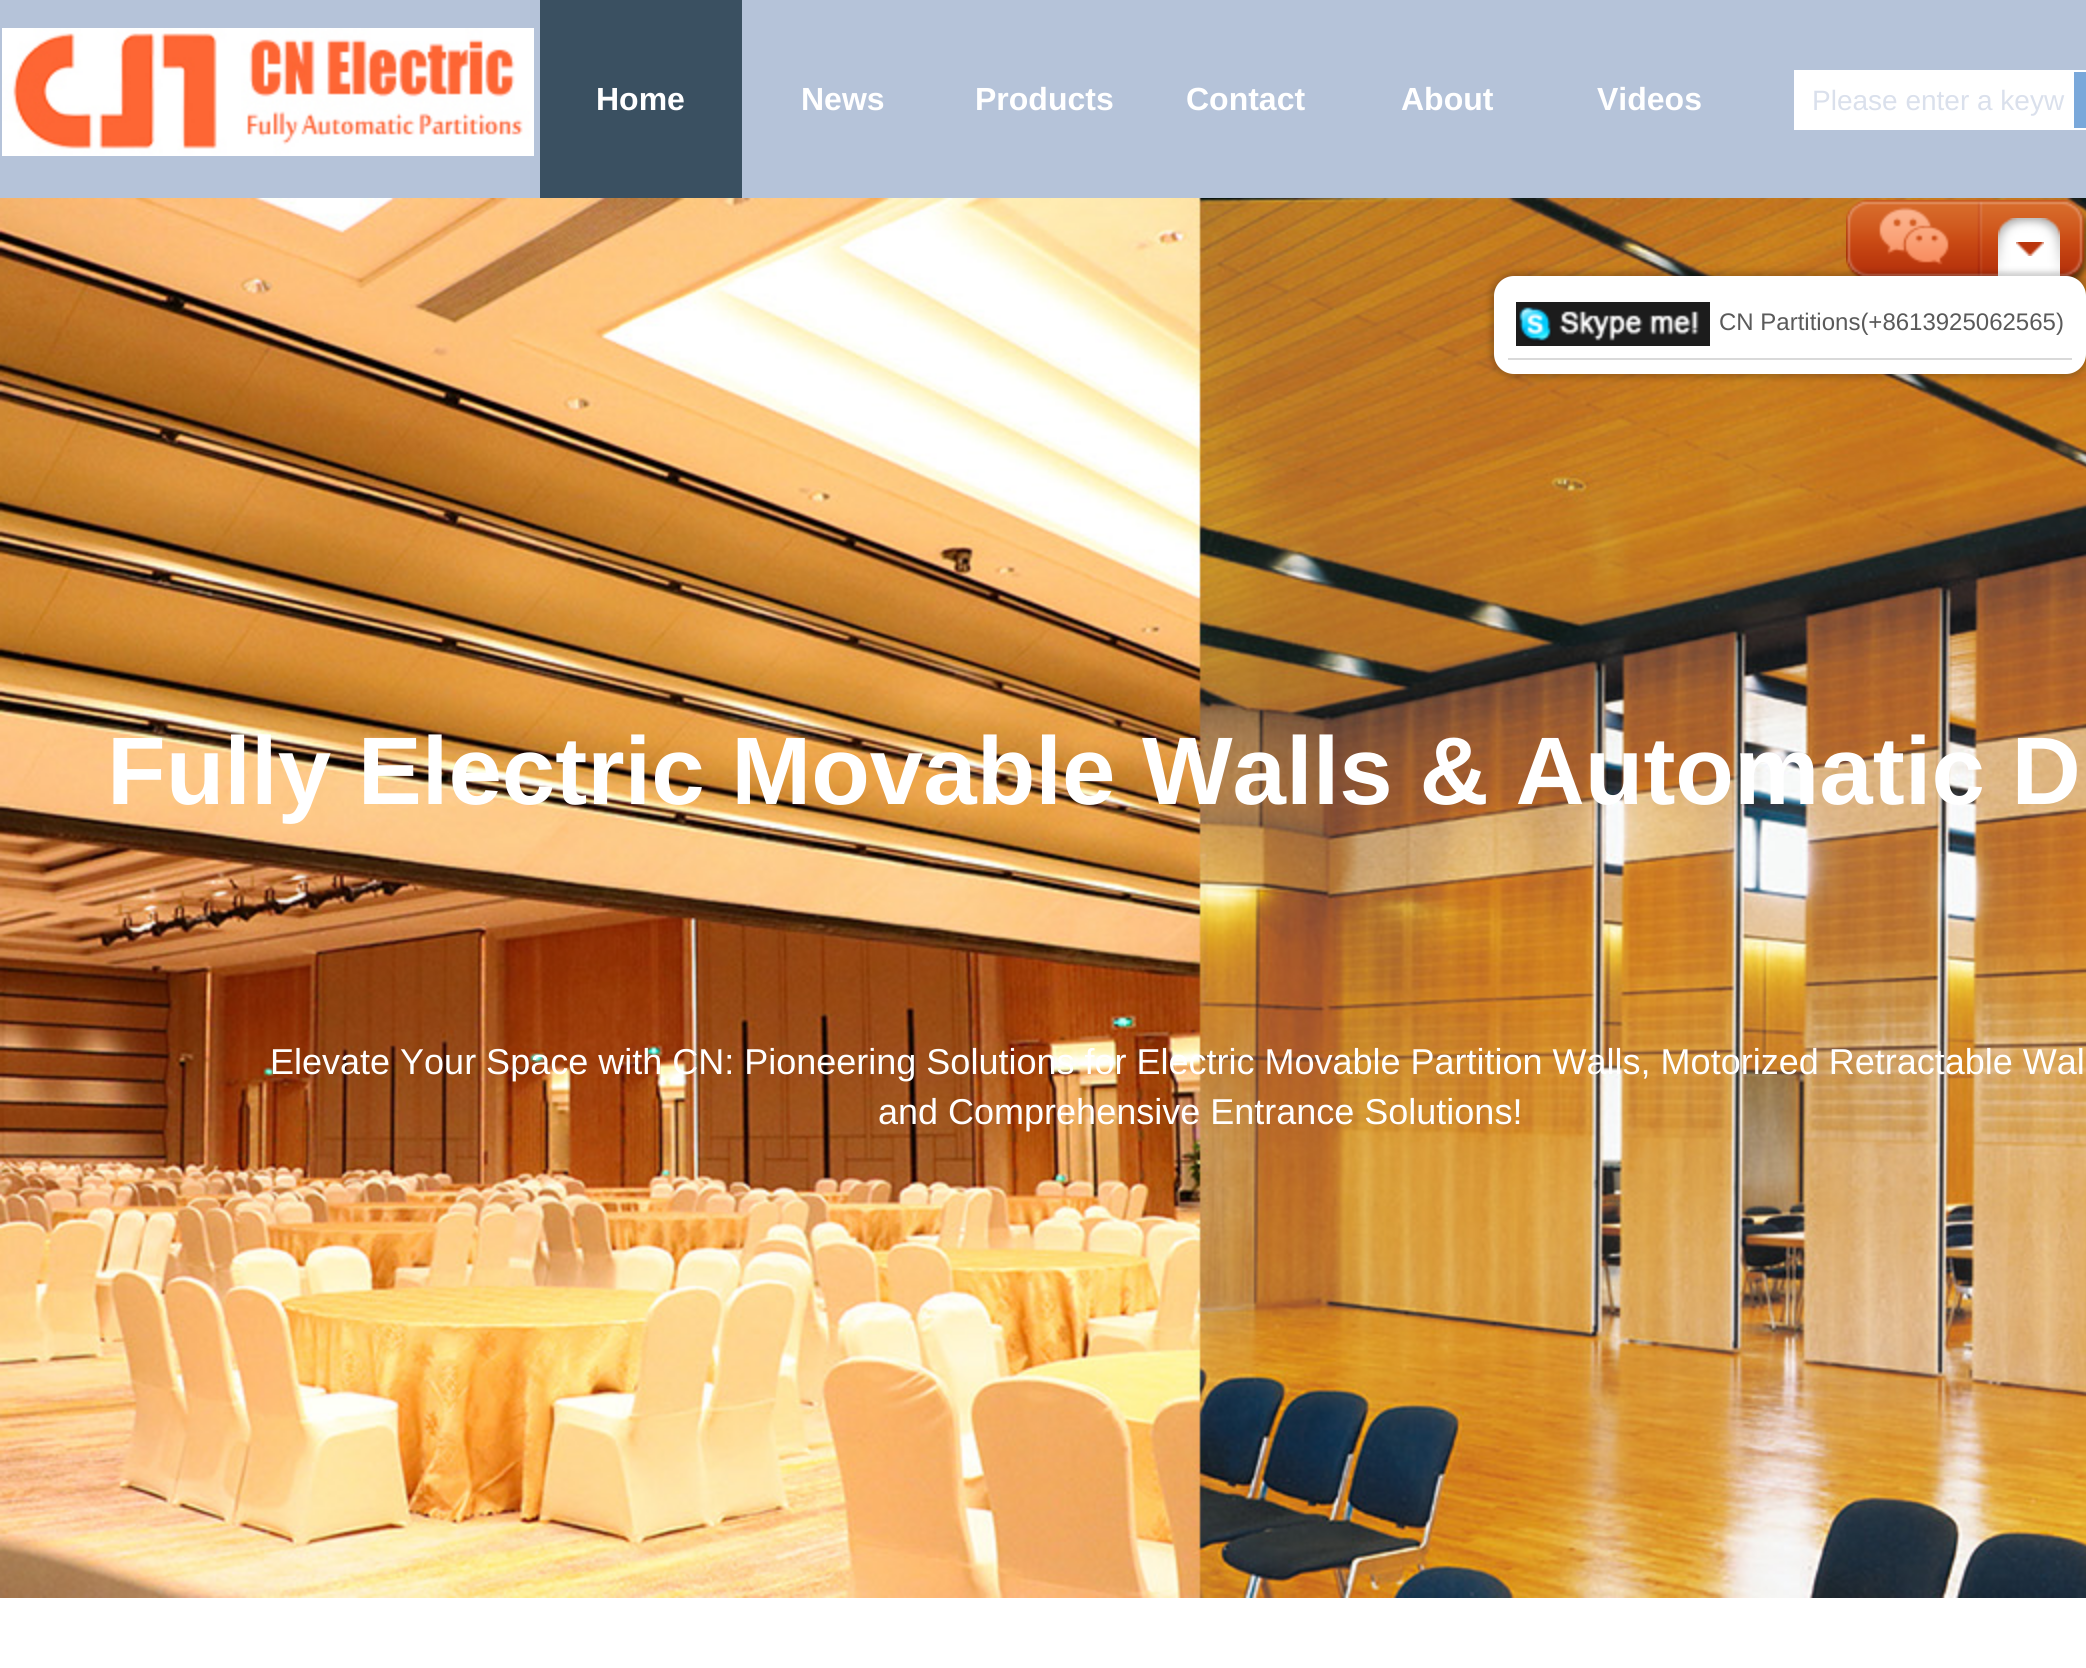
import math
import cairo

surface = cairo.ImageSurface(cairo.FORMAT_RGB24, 2086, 1668)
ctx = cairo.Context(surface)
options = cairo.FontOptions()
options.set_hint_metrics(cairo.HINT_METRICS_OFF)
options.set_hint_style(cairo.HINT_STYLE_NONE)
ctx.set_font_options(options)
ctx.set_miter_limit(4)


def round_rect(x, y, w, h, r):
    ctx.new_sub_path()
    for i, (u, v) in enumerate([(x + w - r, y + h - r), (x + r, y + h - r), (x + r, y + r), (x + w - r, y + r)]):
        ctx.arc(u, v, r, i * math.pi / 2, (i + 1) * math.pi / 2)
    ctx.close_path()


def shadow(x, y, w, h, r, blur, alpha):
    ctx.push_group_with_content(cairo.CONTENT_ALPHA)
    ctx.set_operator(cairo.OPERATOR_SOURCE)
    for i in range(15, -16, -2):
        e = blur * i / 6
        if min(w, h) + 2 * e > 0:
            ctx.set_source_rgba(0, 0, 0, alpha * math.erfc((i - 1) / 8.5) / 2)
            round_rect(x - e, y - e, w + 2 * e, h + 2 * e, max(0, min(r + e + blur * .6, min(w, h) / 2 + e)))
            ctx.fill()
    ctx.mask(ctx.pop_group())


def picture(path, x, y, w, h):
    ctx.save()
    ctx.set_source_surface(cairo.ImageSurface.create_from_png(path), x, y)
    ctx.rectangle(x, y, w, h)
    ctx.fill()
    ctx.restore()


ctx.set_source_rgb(1, 1, 1)
ctx.paint()
ctx.set_source_rgb(0.71, 0.765, 0.851)
ctx.rectangle(0, 0, 2086, 198)
ctx.fill()
picture("img1.png", 2, 28, 532, 128)
ctx.set_source_rgb(0.227, 0.314, 0.38)
ctx.rectangle(540, 0, 202, 198)
ctx.fill()
ctx.select_font_face("Liberation Sans", cairo.FONT_SLANT_NORMAL, cairo.FONT_WEIGHT_BOLD)
ctx.set_font_size(32)
ctx.set_source_rgb(1, 1, 1)
ctx.move_to(596, 110)
ctx.show_text("Home")
ctx.move_to(801, 110)
ctx.show_text("News")
ctx.move_to(975, 110)
ctx.show_text("Products")
ctx.move_to(1186, 110)
ctx.show_text("Contact")
ctx.move_to(1401, 110)
ctx.show_text("About")
ctx.move_to(1597, 110)
ctx.show_text("Videos")
ctx.rectangle(1794, 70, 292, 60)
ctx.fill()
ctx.select_font_face("Liberation Sans")
ctx.set_font_size(28)
ctx.set_source_rgb(0.855, 0.878, 0.922)
ctx.move_to(1812, 110)
ctx.show_text("Please enter a keyw")
ctx.set_source_rgb(0.478, 0.659, 0.855)
ctx.rectangle(2074, 72, 12, 56)
ctx.fill()
picture("img2.png", 0, 198, 2086, 1400)
ctx.select_font_face("Liberation Sans", cairo.FONT_SLANT_NORMAL, cairo.FONT_WEIGHT_BOLD)
ctx.set_font_size(96)
ctx.set_source_rgb(1, 1, 1)
ctx.move_to(107, 804)
ctx.show_text("Fully Electric Movable Walls & Automatic D")
ctx.select_font_face("Liberation Sans")
ctx.set_font_size(36)
ctx.move_to(270, 1074)
ctx.show_text("Elevate Your Space with CN: Pioneering Solutions for Electric Movable Partition Walls, Motorized Retractable Wal")
ctx.move_to(878, 1124)
ctx.show_text("and Comprehensive Entrance Solutions!")
picture("img3.png", 1846, 200, 240, 82)
picture("img4.png", 1998, 218, 62, 58)
picture("img5.png", 2016, 242, 28, 14)
ctx.set_source_rgb(0, 0, 0)
shadow(1490, 272, 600, 106, 24, 3, 0.2)
ctx.set_source_rgb(1, 1, 1)
round_rect(1494, 276, 592, 98, 20)
ctx.fill()
ctx.set_source_rgb(0.851, 0.851, 0.851)
ctx.rectangle(1508, 358, 564, 2)
ctx.fill()
picture("img6.png", 1516, 302, 194, 44)
ctx.set_font_size(24)
ctx.set_source_rgb(0.353, 0.353, 0.353)
ctx.move_to(1719, 330)
ctx.show_text("CN Partitions(+8613925062565)")
surface.write_to_png("page.png")
